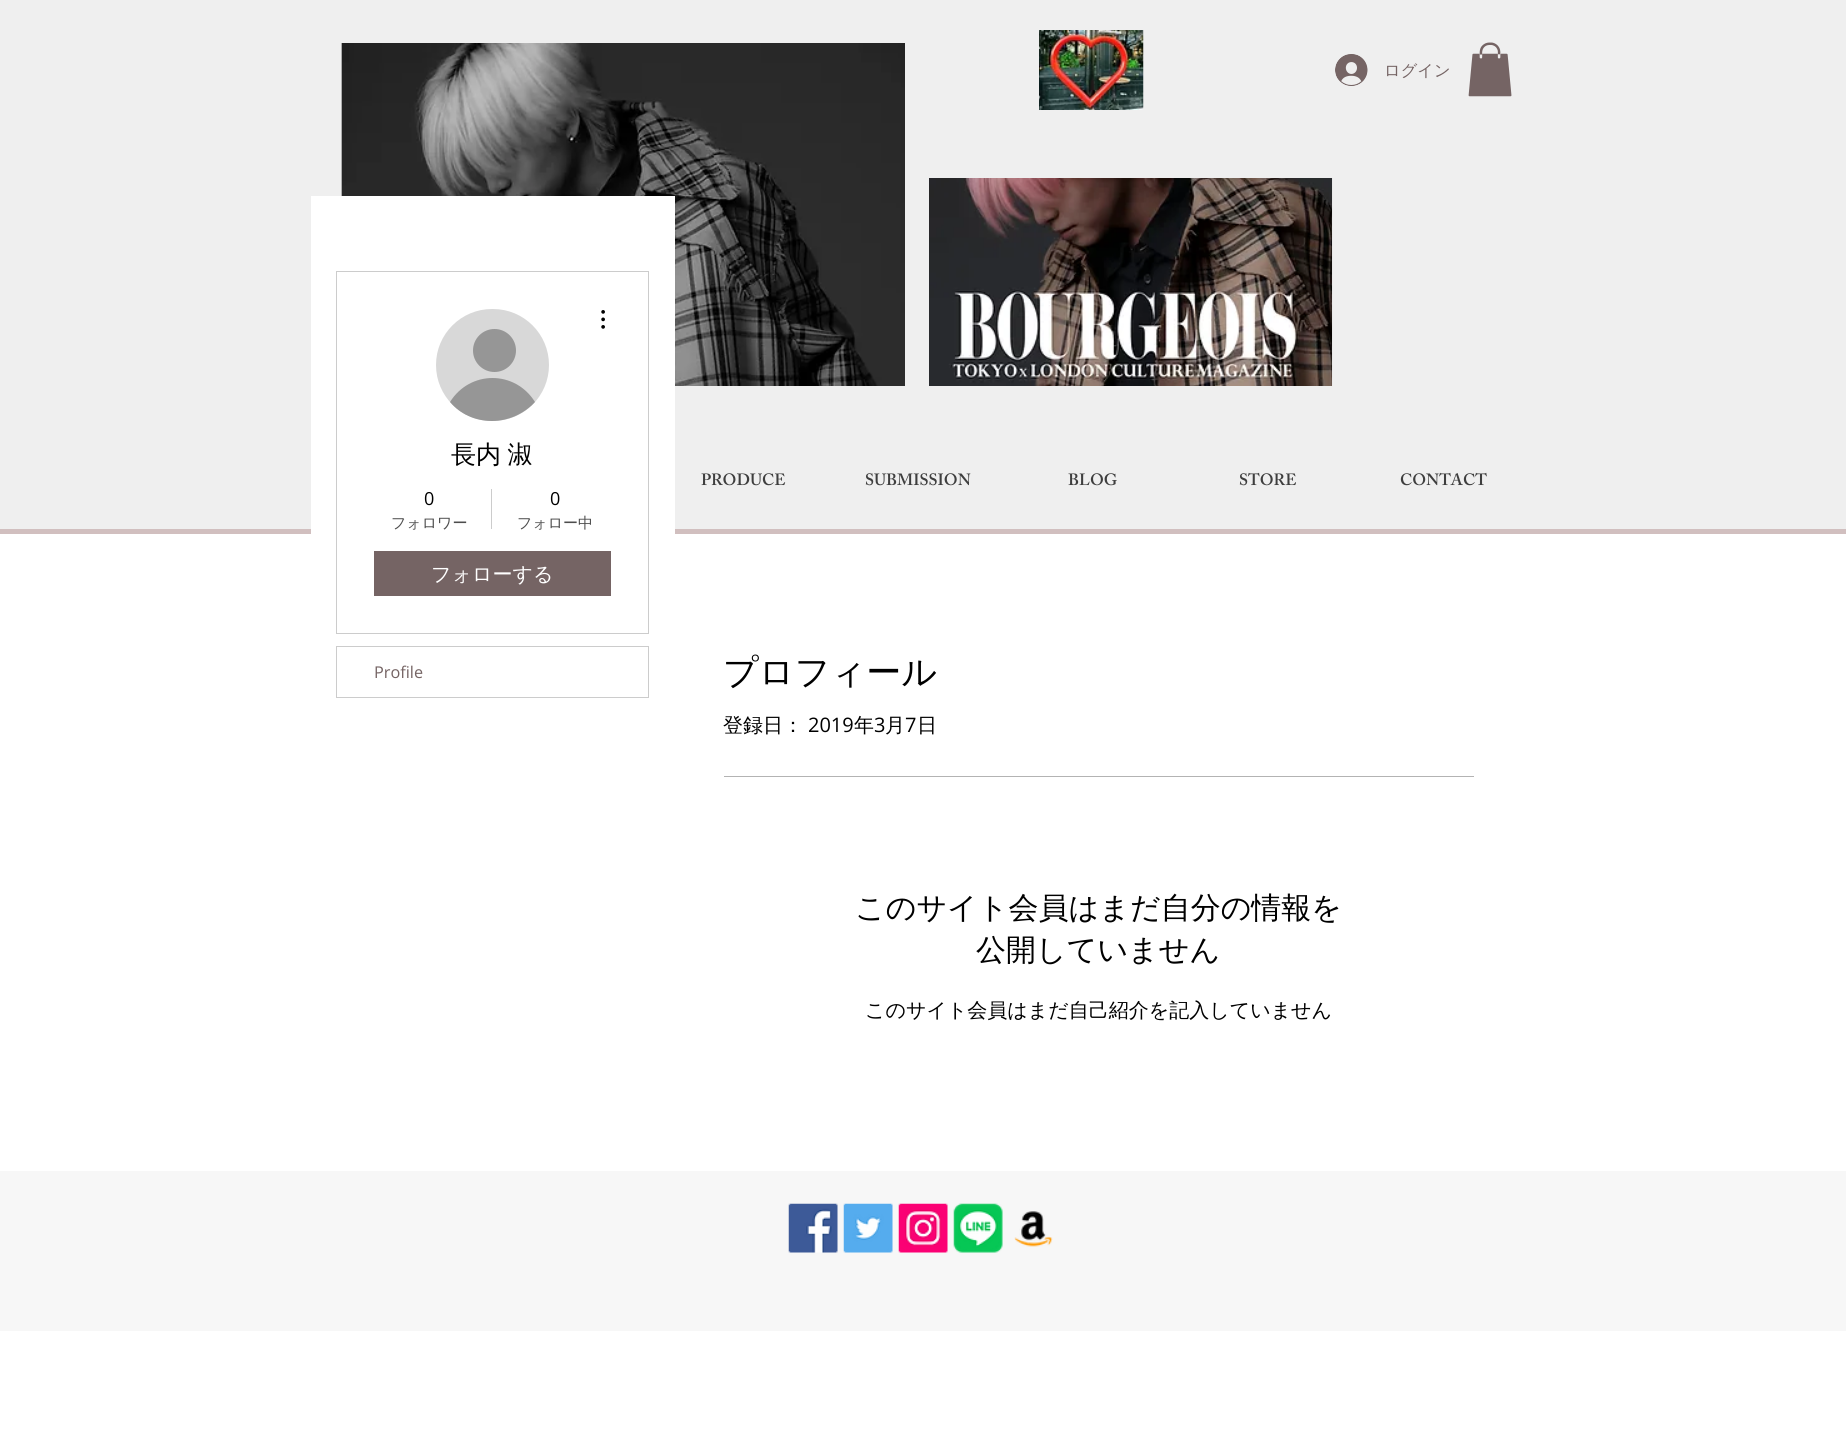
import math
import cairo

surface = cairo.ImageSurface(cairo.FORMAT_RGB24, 1846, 1441)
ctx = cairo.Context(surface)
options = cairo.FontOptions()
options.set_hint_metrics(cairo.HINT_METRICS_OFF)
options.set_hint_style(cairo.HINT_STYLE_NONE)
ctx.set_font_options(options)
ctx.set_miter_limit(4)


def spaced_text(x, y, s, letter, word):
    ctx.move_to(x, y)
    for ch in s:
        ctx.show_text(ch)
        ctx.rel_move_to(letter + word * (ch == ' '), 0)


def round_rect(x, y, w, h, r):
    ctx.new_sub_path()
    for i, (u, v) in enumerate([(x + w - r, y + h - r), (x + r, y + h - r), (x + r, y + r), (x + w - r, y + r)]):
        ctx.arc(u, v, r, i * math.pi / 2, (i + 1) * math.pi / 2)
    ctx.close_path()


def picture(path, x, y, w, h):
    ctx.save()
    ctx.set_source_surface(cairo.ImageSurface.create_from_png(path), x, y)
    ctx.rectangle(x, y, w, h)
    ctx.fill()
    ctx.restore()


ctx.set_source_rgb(1, 1, 1)
ctx.paint()
ctx.set_source_rgb(0.82, 0.749, 0.749)
ctx.rectangle(0, 529, 1846, 5)
ctx.fill()
ctx.set_source_rgb(0.937, 0.937, 0.937)
ctx.rectangle(0, 0, 1846, 529)
ctx.fill()
picture("img1.png", 341, 43, 564, 343)
picture("img2.png", 1039, 30, 105, 80)
picture("img3.png", 1335, 54, 33, 32)
ctx.select_font_face("WenQuanYi Zen Hei Medium")
ctx.set_font_size(16.25)
ctx.set_source_rgb(0.459, 0.392, 0.392)
ctx.move_to(1384, 76)
ctx.show_text("ログイン")
picture("img4.png", 1468, 42, 44, 55)
picture("img5.png", 929, 178, 404, 208)
ctx.select_font_face("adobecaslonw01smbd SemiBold")
ctx.set_source_rgb(0.243, 0.243, 0.243)
ctx.move_to(701, 485)
ctx.show_text("PRODUCE")
ctx.move_to(865, 485)
ctx.show_text("SUBMISSION")
ctx.move_to(1068, 485)
ctx.show_text("BLOG")
ctx.move_to(1239, 485)
ctx.show_text("STORE")
ctx.move_to(1400, 485)
ctx.show_text("CONTACT")
ctx.set_source_rgb(1, 1, 1)
ctx.rectangle(311, 196, 364, 338)
ctx.fill()
ctx.rectangle(336.5, 271.5, 312, 362)
ctx.set_source_rgb(0.8, 0.8, 0.8)
ctx.set_line_width(1)
ctx.stroke()
ctx.set_source_rgb(0.847, 0.847, 0.847)
round_rect(436, 309, 113, 112, 56)
ctx.fill()
ctx.set_source_rgb(0.588, 0.588, 0.588)
ctx.arc(494.5, 350.5, 21.5, 0, 2 * math.pi)
ctx.fill()
ctx.new_path()
ctx.move_to(492, 421)
ctx.curve_to(508, 421, 524, 414, 535, 402)
ctx.curve_to(515, 370, 470, 370, 450, 402)
ctx.curve_to(460, 414, 475, 421, 492, 421)
ctx.close_path()
ctx.fill()
picture("img6.png", 601, 310, 4, 19)
ctx.select_font_face("WenQuanYi Zen Hei Medium")
ctx.set_font_size(25)
ctx.set_source_rgb(0, 0, 0)
spaced_text(451, 463, "長内 淑", 0, -1)
ctx.select_font_face("Open Sans")
ctx.set_font_size(18)
ctx.move_to(424, 505)
ctx.show_text("0")
ctx.select_font_face("WenQuanYi Zen Hei Medium")
ctx.set_font_size(15)
ctx.set_source_rgb(0.302, 0.302, 0.302)
ctx.move_to(391, 528)
ctx.show_text("フォロワー")
ctx.set_source_rgb(0.8, 0.8, 0.8)
ctx.rectangle(491, 489, 1, 40)
ctx.fill()
ctx.select_font_face("Open Sans")
ctx.set_font_size(18)
ctx.set_source_rgb(0, 0, 0)
ctx.move_to(550, 505)
ctx.show_text("0")
ctx.select_font_face("WenQuanYi Zen Hei Medium")
ctx.set_font_size(15)
ctx.set_source_rgb(0.302, 0.302, 0.302)
ctx.move_to(517, 528)
ctx.show_text("フォロー中")
ctx.set_source_rgb(0.459, 0.392, 0.392)
ctx.rectangle(374, 551, 237, 45)
ctx.fill()
ctx.set_font_size(20)
ctx.set_source_rgb(1, 1, 1)
ctx.move_to(431, 581)
ctx.show_text("フォローする")
ctx.rectangle(336.5, 646.5, 312, 51)
ctx.set_source_rgb(0.8, 0.8, 0.8)
ctx.stroke()
ctx.select_font_face("Open Sans")
ctx.set_font_size(16.25)
ctx.set_source_rgb(0.459, 0.392, 0.392)
ctx.move_to(374, 678)
ctx.show_text("Profile")
ctx.select_font_face("WenQuanYi Zen Hei Medium")
ctx.set_font_size(35)
ctx.set_source_rgb(0, 0, 0)
ctx.move_to(723, 684)
ctx.show_text("プロフィール")
ctx.set_font_size(20)
ctx.move_to(723, 732)
ctx.show_text("登録日：")
ctx.select_font_face("Open Sans")
ctx.move_to(808, 732)
ctx.show_text("2019")
ctx.select_font_face("WenQuanYi Zen Hei Medium")
ctx.move_to(854, 732)
ctx.show_text("年")
ctx.select_font_face("Open Sans")
ctx.move_to(874, 732)
ctx.show_text("3")
ctx.select_font_face("WenQuanYi Zen Hei Medium")
ctx.move_to(885, 732)
ctx.show_text("月")
ctx.select_font_face("Open Sans")
ctx.move_to(905, 732)
ctx.show_text("7")
ctx.select_font_face("WenQuanYi Zen Hei Medium")
ctx.move_to(917, 732)
ctx.show_text("日")
ctx.set_source_rgb(0.702, 0.702, 0.702)
ctx.rectangle(724, 776, 750, 1)
ctx.fill()
ctx.set_font_size(30)
ctx.set_source_rgb(0, 0, 0)
ctx.move_to(855, 918)
ctx.show_text("このサイト会員はまだ自分の情報を")
ctx.move_to(976, 960)
ctx.show_text("公開していません")
ctx.set_font_size(20)
ctx.move_to(865, 1017)
ctx.show_text("このサイト会員はまだ自己紹介を記入していません")
ctx.set_source_rgb(0.965, 0.965, 0.965)
ctx.rectangle(0, 1171, 1846, 160)
ctx.fill()
picture("img7.png", 788, 1203, 50, 50)
picture("img8.png", 843, 1203, 50, 50)
picture("img9.png", 898, 1203, 50, 50)
picture("img10.png", 953, 1203, 50, 50)
picture("img11.png", 1014, 1211, 39, 36)
surface.write_to_png("page.png")
